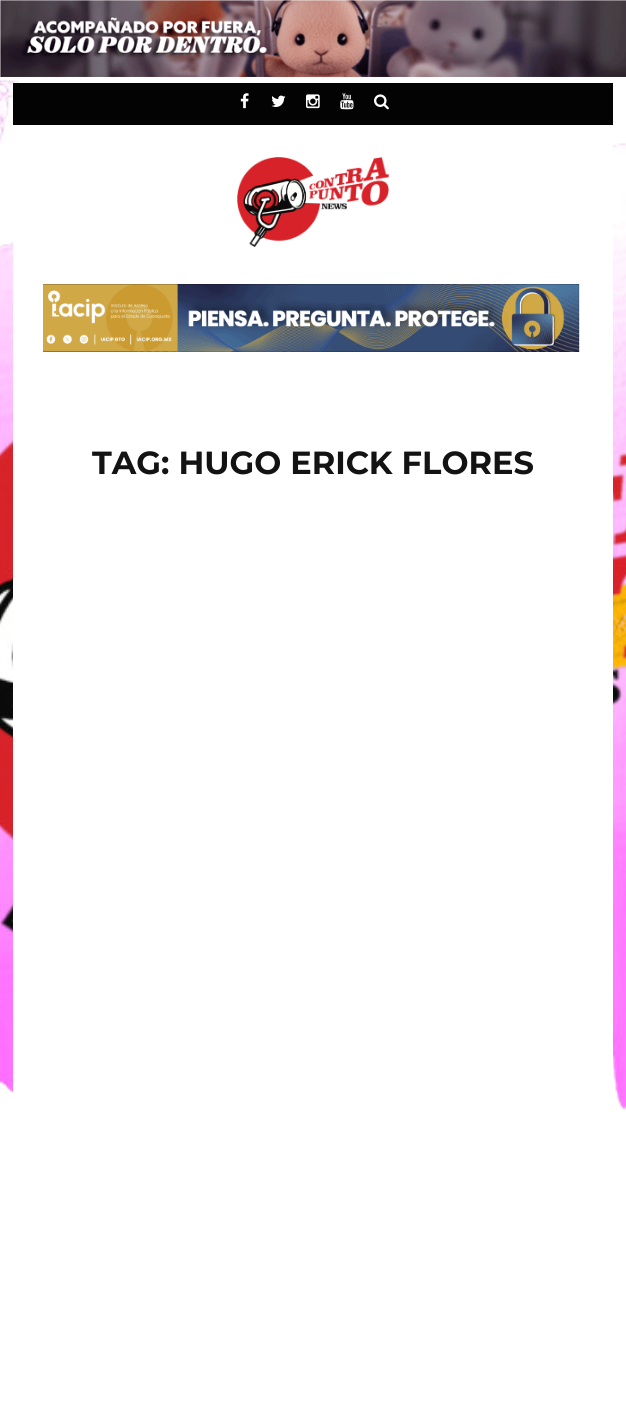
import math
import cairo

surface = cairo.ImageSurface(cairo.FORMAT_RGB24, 626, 1408)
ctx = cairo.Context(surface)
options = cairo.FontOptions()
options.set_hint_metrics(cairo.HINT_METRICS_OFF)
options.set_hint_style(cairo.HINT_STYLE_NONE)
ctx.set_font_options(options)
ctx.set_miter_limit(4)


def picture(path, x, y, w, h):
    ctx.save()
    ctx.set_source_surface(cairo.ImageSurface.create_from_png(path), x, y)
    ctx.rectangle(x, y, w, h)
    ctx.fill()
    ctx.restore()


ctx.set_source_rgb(1, 1, 1)
ctx.paint()
picture("img1.png", 0, 80, 626, 1051)
picture("img2.png", 0, 0, 626, 77)
ctx.set_source_rgb(1, 1, 1)
ctx.rectangle(13, 145, 600, 986)
ctx.fill()
ctx.set_source_rgb(0.012, 0.012, 0.012)
ctx.rectangle(13, 83, 600, 42)
ctx.fill()
picture("img3.png", 240, 93, 9, 16)
picture("img4.png", 271, 95, 15, 12)
picture("img5.png", 306, 94, 14, 15)
picture("img6.png", 340, 93, 14, 17)
picture("img7.png", 374, 94, 15, 16)
picture("img8.png", 237, 157, 152, 90)
picture("img9.png", 43, 284, 537, 68)
ctx.select_font_face("Montserrat", cairo.FONT_SLANT_NORMAL, cairo.FONT_WEIGHT_BOLD)
ctx.set_font_size(32)
ctx.set_source_rgb(0.075, 0.075, 0.075)
ctx.move_to(92, 474)
ctx.show_text("TAG: HUGO ERICK FLORES")
surface.write_to_png("page.png")
